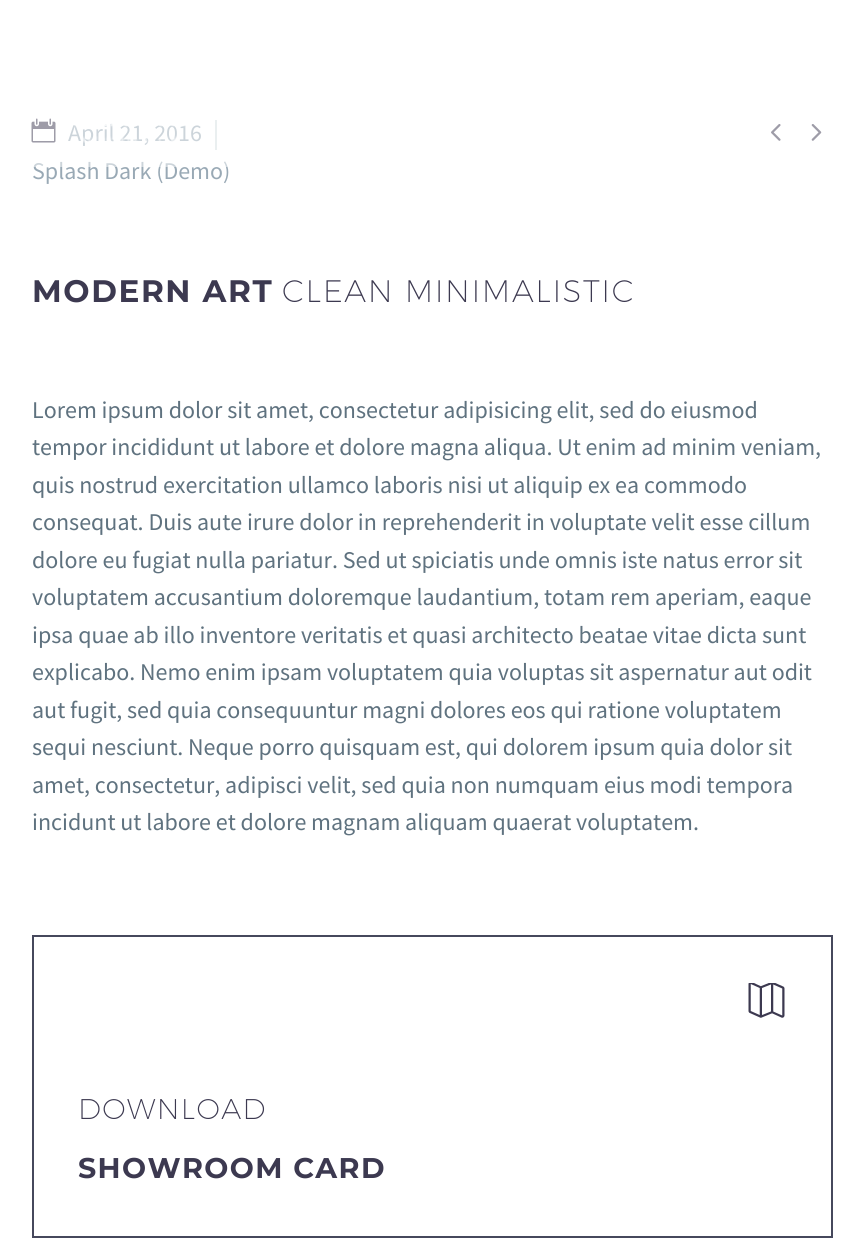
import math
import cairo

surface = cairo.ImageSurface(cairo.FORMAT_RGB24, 863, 1250)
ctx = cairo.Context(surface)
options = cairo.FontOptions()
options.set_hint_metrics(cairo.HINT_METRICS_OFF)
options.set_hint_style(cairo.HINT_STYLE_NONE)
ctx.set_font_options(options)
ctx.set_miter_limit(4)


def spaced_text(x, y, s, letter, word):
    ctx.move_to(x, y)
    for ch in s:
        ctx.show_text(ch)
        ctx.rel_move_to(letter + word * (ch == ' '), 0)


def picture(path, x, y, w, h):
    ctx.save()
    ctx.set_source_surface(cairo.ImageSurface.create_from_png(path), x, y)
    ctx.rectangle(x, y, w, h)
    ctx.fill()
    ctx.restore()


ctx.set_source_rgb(1, 1, 1)
ctx.paint()
picture("img2.png", 31, 118, 25, 25)
ctx.select_font_face("Source Sans Pro")
ctx.set_font_size(24)
ctx.set_source_rgb(0.6, 0.663, 0.71)
ctx.move_to(68, 141)
ctx.show_text("April 21, 2016")
ctx.set_source_rgb(0.831, 0.871, 0.882)
ctx.rectangle(215, 120, 2, 30)
ctx.fill()
ctx.set_source_rgb(0.6, 0.663, 0.71)
ctx.move_to(32, 179)
ctx.show_text("Splash Dark (Demo)")
picture("img3.png", 771, 124, 10, 17)
picture("img4.png", 811, 124, 11, 17)
ctx.set_source_rgba(1, 1, 1, 0.5)
ctx.rectangle(31, 118, 791, 49)
ctx.fill()
picture("img1.png", 74, 124, 111, 19)
ctx.select_font_face("Montserrat", cairo.FONT_SLANT_NORMAL, cairo.FONT_WEIGHT_BOLD)
ctx.set_font_size(31.1)
ctx.set_source_rgb(0.235, 0.224, 0.314)
spaced_text(32, 302, "MODERN ART", 1.6, 0)
ctx.select_font_face("Montserrat ExtraLight")
spaced_text(282, 302, "CLEAN MINIMALISTIC", 1.6, 0)
ctx.select_font_face("Source Sans Pro")
ctx.set_font_size(24)
ctx.set_source_rgb(0.373, 0.447, 0.498)
ctx.move_to(32, 418)
ctx.show_text("Lorem ipsum dolor sit amet, consectetur adipisicing elit, sed do eiusmod")
ctx.move_to(32, 455)
ctx.show_text("tempor incididunt ut labore et dolore magna aliqua. Ut enim ad minim veniam,")
ctx.move_to(32, 493)
ctx.show_text("quis nostrud exercitation ullamco laboris nisi ut aliquip ex ea commodo")
ctx.move_to(32, 530)
ctx.show_text("consequat. Duis aute irure dolor in reprehenderit in voluptate velit esse cillum")
ctx.move_to(32, 568)
ctx.show_text("dolore eu fugiat nulla pariatur. Sed ut spiciatis unde omnis iste natus error sit")
ctx.move_to(32, 605)
ctx.show_text("voluptatem accusantium doloremque laudantium, totam rem aperiam, eaque")
ctx.move_to(32, 643)
ctx.show_text("ipsa quae ab illo inventore veritatis et quasi architecto beatae vitae dicta sunt")
ctx.move_to(32, 680)
ctx.show_text("explicabo. Nemo enim ipsam voluptatem quia voluptas sit aspernatur aut odit")
ctx.move_to(32, 718)
ctx.show_text("aut fugit, sed quia consequuntur magni dolores eos qui ratione voluptatem")
ctx.move_to(32, 755)
ctx.show_text("sequi nesciunt. Neque porro quisquam est, qui dolorem ipsum quia dolor sit")
ctx.move_to(32, 793)
ctx.show_text("amet, consectetur, adipisci velit, sed quia non numquam eius modi tempora")
ctx.move_to(32, 830)
ctx.show_text("incidunt ut labore et dolore magnam aliquam quaerat voluptatem.")
ctx.rectangle(33, 936, 799, 301)
ctx.set_source_rgb(0.275, 0.282, 0.361)
ctx.stroke()
picture("img5.png", 748, 983, 19, 35)
picture("img6.png", 767, 983, 18, 35)
ctx.select_font_face("Montserrat ExtraLight")
ctx.set_font_size(28.5)
ctx.set_source_rgb(0.235, 0.224, 0.314)
spaced_text(78, 1119, "DOWNLOAD", 1.4, 0)
ctx.select_font_face("Montserrat", cairo.FONT_SLANT_NORMAL, cairo.FONT_WEIGHT_BOLD)
spaced_text(78, 1178, "SHOWROOM CARD", 1.4, 0)
surface.write_to_png("page.png")
